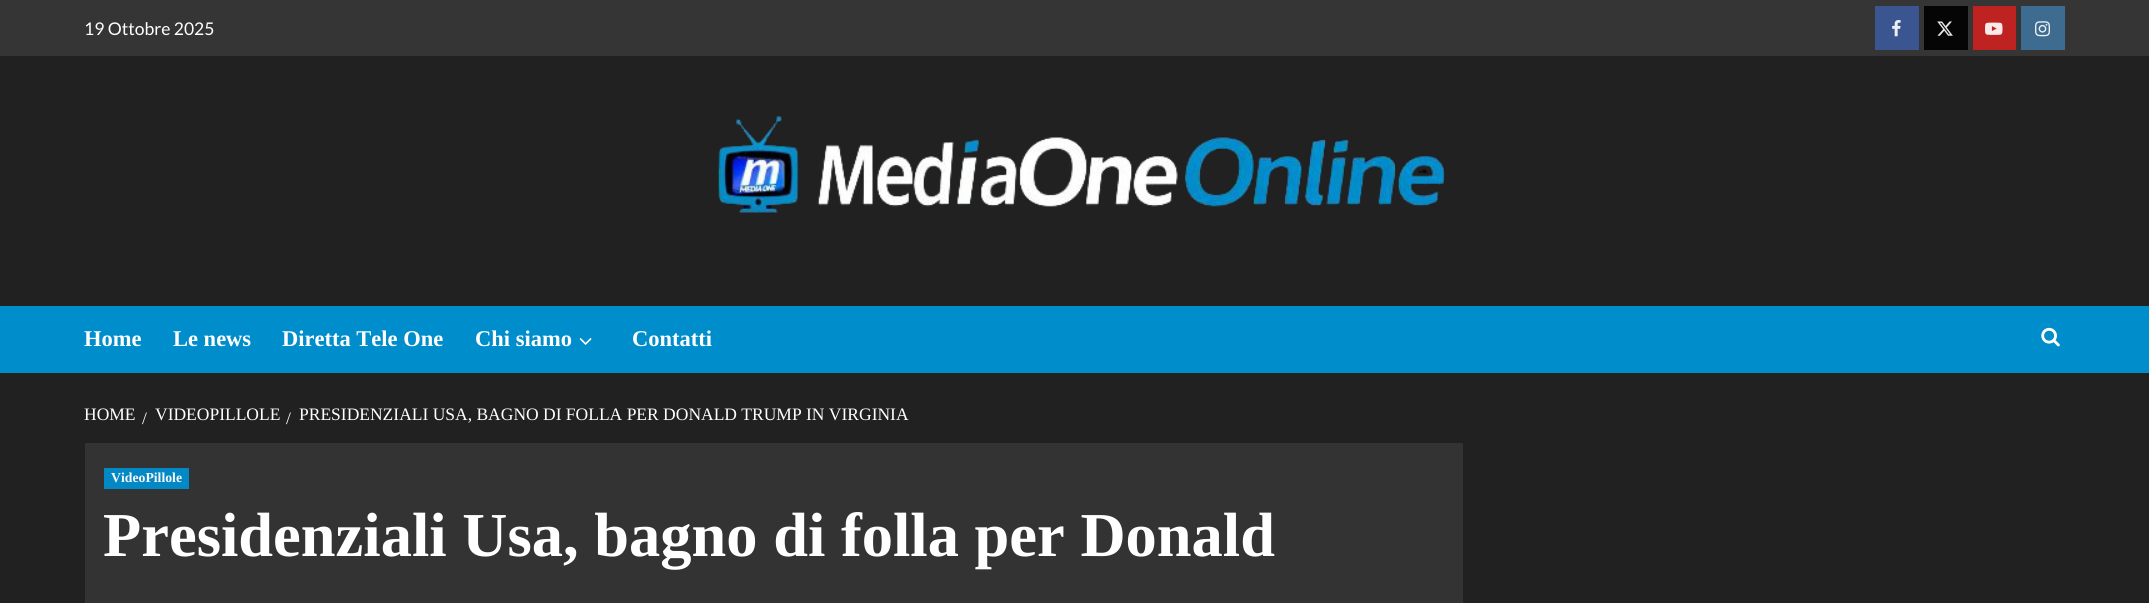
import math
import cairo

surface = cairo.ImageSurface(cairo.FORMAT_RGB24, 2149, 603)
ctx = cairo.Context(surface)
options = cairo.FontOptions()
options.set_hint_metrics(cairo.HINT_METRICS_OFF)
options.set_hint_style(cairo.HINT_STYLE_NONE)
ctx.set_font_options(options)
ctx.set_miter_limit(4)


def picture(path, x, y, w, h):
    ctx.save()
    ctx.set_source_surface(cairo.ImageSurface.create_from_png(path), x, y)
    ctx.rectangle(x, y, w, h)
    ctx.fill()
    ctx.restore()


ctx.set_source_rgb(0.129, 0.129, 0.129)
ctx.paint()
ctx.set_source_rgb(0.208, 0.208, 0.208)
ctx.rectangle(0, 0, 2149, 56)
ctx.fill()
ctx.select_font_face("Lato")
ctx.set_font_size(17.5)
ctx.set_source_rgb(1, 1, 1)
ctx.move_to(84, 35)
ctx.show_text("19 Ottobre 2025")
ctx.set_source_rgb(0.227, 0.333, 0.561)
ctx.rectangle(1875, 6, 44, 44)
ctx.fill()
picture("img1.png", 1892, 20, 9, 17)
ctx.set_source_rgb(0.02, 0.02, 0.02)
ctx.rectangle(1924, 6, 44, 44)
ctx.fill()
picture("img2.png", 1937, 21, 16, 15)
ctx.set_source_rgb(0.745, 0.133, 0.129)
ctx.rectangle(1973, 6, 43, 44)
ctx.fill()
picture("img3.png", 1985, 22, 18, 13)
ctx.set_source_rgb(0.243, 0.424, 0.569)
ctx.rectangle(2021, 6, 44, 44)
ctx.fill()
picture("img4.png", 2035, 21, 15, 16)
picture("img5.png", 718, 116, 727, 98)
ctx.set_source_rgb(0, 0.553, 0.796)
ctx.rectangle(0, 306, 2149, 67)
ctx.fill()
ctx.select_font_face("Liberation Serif", cairo.FONT_SLANT_NORMAL, cairo.FONT_WEIGHT_BOLD)
ctx.set_font_size(22.5)
ctx.set_source_rgb(1, 1, 1)
ctx.move_to(84, 346)
ctx.show_text("Home")
ctx.move_to(173, 346)
ctx.show_text("Le news")
ctx.move_to(282, 346)
ctx.show_text("Diretta Tele One")
ctx.move_to(475, 346)
ctx.show_text("Chi siamo")
picture("img6.png", 579, 338, 13, 7)
ctx.move_to(632, 346)
ctx.show_text("Contatti")
picture("img7.png", 2041, 327, 19, 20)
ctx.select_font_face("Liberation Serif")
ctx.set_font_size(17.5)
ctx.move_to(84, 420)
ctx.show_text("HOME")
ctx.move_to(142, 424)
ctx.show_text("/")
ctx.move_to(155, 420)
ctx.show_text("VIDEOPILLOLE")
ctx.move_to(286, 424)
ctx.show_text("/")
ctx.move_to(299, 420)
ctx.show_text("PRESIDENZIALI USA, BAGNO DI FOLLA PER DONALD TRUMP IN VIRGINIA")
ctx.set_source_rgb(0.2, 0.2, 0.2)
ctx.rectangle(85, 443, 1378, 160)
ctx.fill()
ctx.set_source_rgb(0.008, 0.537, 0.773)
ctx.rectangle(104, 468, 85, 21)
ctx.fill()
ctx.select_font_face("Liberation Serif", cairo.FONT_SLANT_NORMAL, cairo.FONT_WEIGHT_BOLD)
ctx.set_font_size(13.75)
ctx.set_source_rgb(0.969, 0.969, 0.969)
ctx.move_to(111, 482)
ctx.show_text("VideoPillole")
ctx.set_font_size(62.5)
ctx.set_source_rgb(1, 1, 1)
ctx.move_to(103, 556)
ctx.show_text("Presidenziali Usa, bagno di folla per Donald")
surface.write_to_png("page.png")
